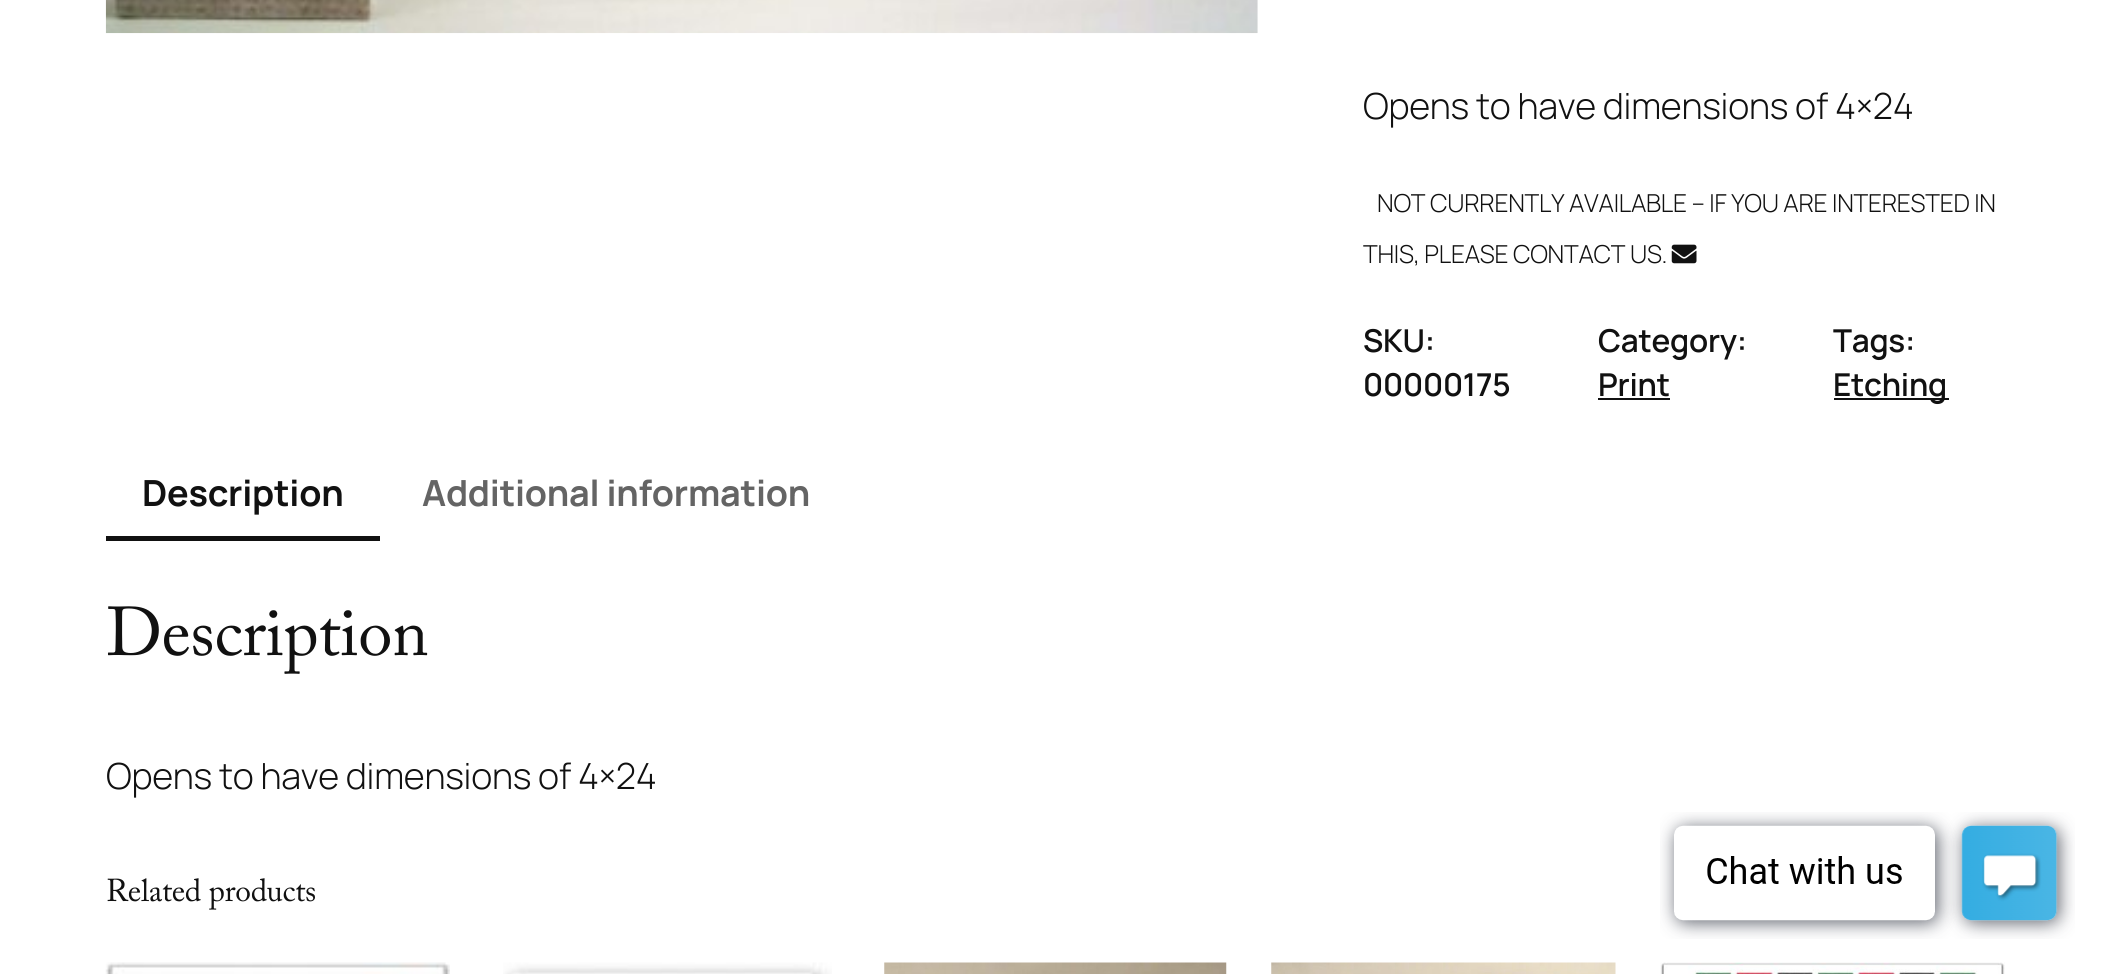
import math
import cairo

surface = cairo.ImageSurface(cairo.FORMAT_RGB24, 2110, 974)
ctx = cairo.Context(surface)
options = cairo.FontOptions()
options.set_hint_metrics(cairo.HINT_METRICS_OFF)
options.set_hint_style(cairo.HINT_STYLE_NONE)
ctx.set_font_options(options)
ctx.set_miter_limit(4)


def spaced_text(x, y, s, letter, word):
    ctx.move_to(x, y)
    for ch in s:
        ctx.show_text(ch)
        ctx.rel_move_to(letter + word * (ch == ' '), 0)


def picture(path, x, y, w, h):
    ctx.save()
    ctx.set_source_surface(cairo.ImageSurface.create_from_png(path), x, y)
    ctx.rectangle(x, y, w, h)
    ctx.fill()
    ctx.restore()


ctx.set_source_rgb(1, 1, 1)
ctx.paint()
picture("img1.png", 105, 0, 1153, 34)
ctx.select_font_face("Manrope Light")
ctx.set_font_size(36)
ctx.set_source_rgb(0.067, 0.067, 0.067)
spaced_text(1363, 119, "Opens to have dimensions of 4×24", -0.25, 0)
ctx.set_font_size(24.75)
spaced_text(1377, 212, "NOT CURRENTLY AVAILABLE – IF YOU ARE INTERESTED IN", -0.25, 0)
spaced_text(1363, 263, "THIS, PLEASE CONTACT US.", -0.25, 0)
picture("img2.png", 1671, 244, 26, 20)
ctx.select_font_face("Manrope SemiBold")
ctx.set_font_size(31.5)
spaced_text(1363, 352, "SKU:", -0.25, 0)
spaced_text(1363, 396, "00000175", -0.25, 0)
spaced_text(1598, 352, "Category:", -0.25, 0)
spaced_text(1598, 396, "Print", -0.25, 0)
ctx.rectangle(1598, 398, 72, 2)
ctx.fill()
spaced_text(1833, 352, "Tags:", -0.25, 0)
ctx.rectangle(1834, 398, 115, 2)
ctx.fill()
spaced_text(1833, 396, "Etching", -0.25, 0)
ctx.rectangle(106, 536, 274, 5)
ctx.fill()
ctx.select_font_face("Manrope", cairo.FONT_SLANT_NORMAL, cairo.FONT_WEIGHT_BOLD)
ctx.set_font_size(36)
spaced_text(142, 506, "Description", -0.25, 0)
ctx.set_source_rgb(0.392, 0.392, 0.392)
spaced_text(422, 506, "Additional information", -0.25, 0)
ctx.select_font_face("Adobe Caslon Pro")
ctx.set_font_size(68.5)
ctx.set_source_rgb(0.067, 0.067, 0.067)
spaced_text(106, 655, "Description", -0.25, 0)
ctx.select_font_face("Manrope Light")
ctx.set_font_size(36)
spaced_text(106, 789, "Opens to have dimensions of 4×24", -0.25, 0)
ctx.select_font_face("Adobe Caslon Pro")
ctx.set_font_size(31.5)
spaced_text(106, 901, "Related products", -0.25, 0)
picture("img3.png", 105, 962, 345, 12)
picture("img4.png", 503, 962, 329, 12)
picture("img5.png", 884, 962, 343, 12)
picture("img6.png", 1271, 962, 345, 12)
picture("img7.png", 1660, 962, 345, 12)
picture("img8.png", 1660, 812, 415, 127)
surface.write_to_png("page.png")
